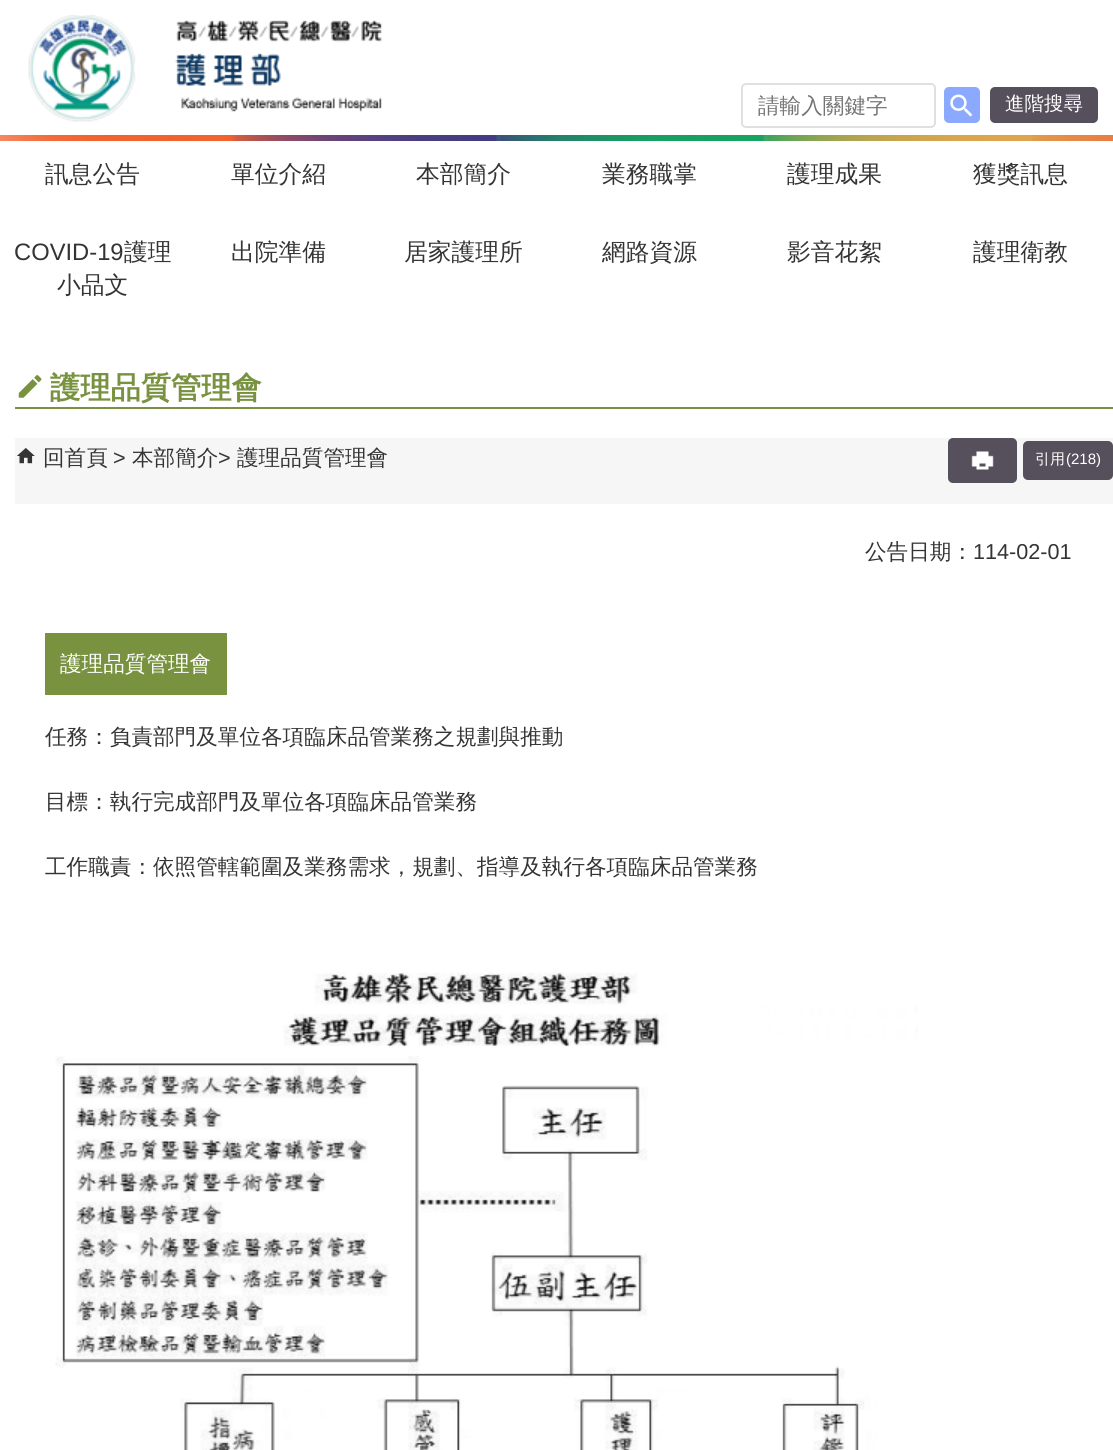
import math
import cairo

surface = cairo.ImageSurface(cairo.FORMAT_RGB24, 1113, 1450)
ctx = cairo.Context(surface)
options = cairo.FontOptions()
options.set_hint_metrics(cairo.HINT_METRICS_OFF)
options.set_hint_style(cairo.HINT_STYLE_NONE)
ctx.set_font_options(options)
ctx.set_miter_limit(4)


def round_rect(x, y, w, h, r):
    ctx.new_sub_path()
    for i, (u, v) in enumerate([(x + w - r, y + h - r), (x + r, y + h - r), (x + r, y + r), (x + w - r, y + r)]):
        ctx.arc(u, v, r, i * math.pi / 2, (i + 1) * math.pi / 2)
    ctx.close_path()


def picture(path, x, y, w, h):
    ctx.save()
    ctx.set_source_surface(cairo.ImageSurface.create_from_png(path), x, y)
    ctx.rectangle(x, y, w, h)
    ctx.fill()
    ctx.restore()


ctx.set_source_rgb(1, 1, 1)
ctx.paint()
picture("img1.png", 28, 15, 355, 107)
round_rect(742, 84, 193, 43, 4)
ctx.set_source_rgb(0.878, 0.878, 0.878)
ctx.stroke()
ctx.select_font_face("WenQuanYi Zen Hei Medium")
ctx.set_font_size(21.6)
ctx.set_source_rgb(0.459, 0.459, 0.459)
ctx.move_to(758, 113)
ctx.show_text("請輸入關鍵字")
ctx.set_source_rgb(0.545, 0.667, 1)
round_rect(944, 87, 36, 36, 5)
ctx.fill()
picture("img2.png", 950, 94, 23, 23)
ctx.set_source_rgb(0.333, 0.314, 0.361)
round_rect(990, 87, 108, 36, 5)
ctx.fill()
ctx.set_font_size(19.5)
ctx.set_source_rgb(1, 1, 1)
ctx.move_to(1005, 110)
ctx.show_text("進階搜尋")
picture("img3.png", 0, 135, 1113, 6)
ctx.set_font_size(23.75)
ctx.set_source_rgb(0.204, 0.204, 0.204)
ctx.move_to(45, 182)
ctx.show_text("訊息公告")
ctx.move_to(231, 182)
ctx.show_text("單位介紹")
ctx.move_to(416, 182)
ctx.show_text("本部簡介")
ctx.move_to(602, 182)
ctx.show_text("業務職掌")
ctx.move_to(787, 182)
ctx.show_text("護理成果")
ctx.move_to(973, 182)
ctx.show_text("獲獎訊息")
ctx.select_font_face("Liberation Sans")
ctx.move_to(14, 260)
ctx.show_text("COVID-19")
ctx.select_font_face("WenQuanYi Zen Hei Medium")
ctx.move_to(124, 260)
ctx.show_text("護理")
ctx.move_to(57, 293)
ctx.show_text("小品文")
ctx.move_to(231, 260)
ctx.show_text("出院準備")
ctx.move_to(404, 260)
ctx.show_text("居家護理所")
ctx.move_to(602, 260)
ctx.show_text("網路資源")
ctx.move_to(787, 260)
ctx.show_text("影音花絮")
ctx.move_to(973, 260)
ctx.show_text("護理衛教")
ctx.set_source_rgb(0.471, 0.573, 0.251)
ctx.rectangle(15, 407, 1098, 2)
ctx.fill()
picture("img4.png", 18, 375, 24, 23)
ctx.select_font_face("WenQuanYi Zen Hei", cairo.FONT_SLANT_NORMAL, cairo.FONT_WEIGHT_BOLD)
ctx.set_font_size(30.25)
ctx.move_to(50, 398)
ctx.show_text("護理品質管理會")
ctx.set_source_rgb(0.961, 0.961, 0.961)
ctx.rectangle(15, 438, 1098, 66)
ctx.fill()
ctx.set_source_rgb(0.333, 0.314, 0.361)
round_rect(948, 438, 69, 45, 5)
ctx.fill()
picture("img5.png", 971, 451, 23, 19)
round_rect(1023, 441, 90, 39, 5)
ctx.fill()
ctx.select_font_face("WenQuanYi Zen Hei Medium")
ctx.set_font_size(15)
ctx.set_source_rgb(1, 1, 1)
ctx.move_to(1035, 464)
ctx.show_text("引用")
ctx.select_font_face("Liberation Sans")
ctx.move_to(1066, 464)
ctx.show_text("(218)")
picture("img6.png", 17, 448, 18, 16)
ctx.select_font_face("WenQuanYi Zen Hei Medium")
ctx.set_font_size(21.6)
ctx.set_source_rgb(0.204, 0.204, 0.204)
ctx.move_to(43, 465)
ctx.show_text("回首頁")
ctx.select_font_face("Liberation Sans")
ctx.move_to(113, 465)
ctx.show_text(">")
ctx.select_font_face("WenQuanYi Zen Hei Medium")
ctx.move_to(132, 465)
ctx.show_text("本部簡介")
ctx.select_font_face("Liberation Sans")
ctx.move_to(218, 465)
ctx.show_text(">")
ctx.select_font_face("WenQuanYi Zen Hei Medium")
ctx.move_to(237, 465)
ctx.show_text("護理品質管理會")
ctx.move_to(865, 559)
ctx.show_text("公告日期：")
ctx.select_font_face("Liberation Sans")
ctx.move_to(973, 559)
ctx.show_text("114-02-01")
ctx.set_source_rgb(0.471, 0.573, 0.251)
ctx.rectangle(45, 633, 182, 62)
ctx.fill()
ctx.select_font_face("WenQuanYi Zen Hei Medium")
ctx.set_source_rgb(1, 1, 1)
ctx.move_to(60, 671)
ctx.show_text("護理品質管理會")
ctx.set_source_rgb(0.204, 0.204, 0.204)
ctx.move_to(45, 744)
ctx.show_text("任務：負責部門及單位各項臨床品管業務之規劃與推動")
ctx.move_to(45, 809)
ctx.show_text("目標：執行完成部門及單位各項臨床品管業務")
ctx.move_to(45, 874)
ctx.show_text("工作職責：依照管轄範圍及業務需求，規劃、指導及執行各項臨床品管業務")
picture("img7.png", 55, 972, 863, 478)
surface.write_to_png("page.png")
